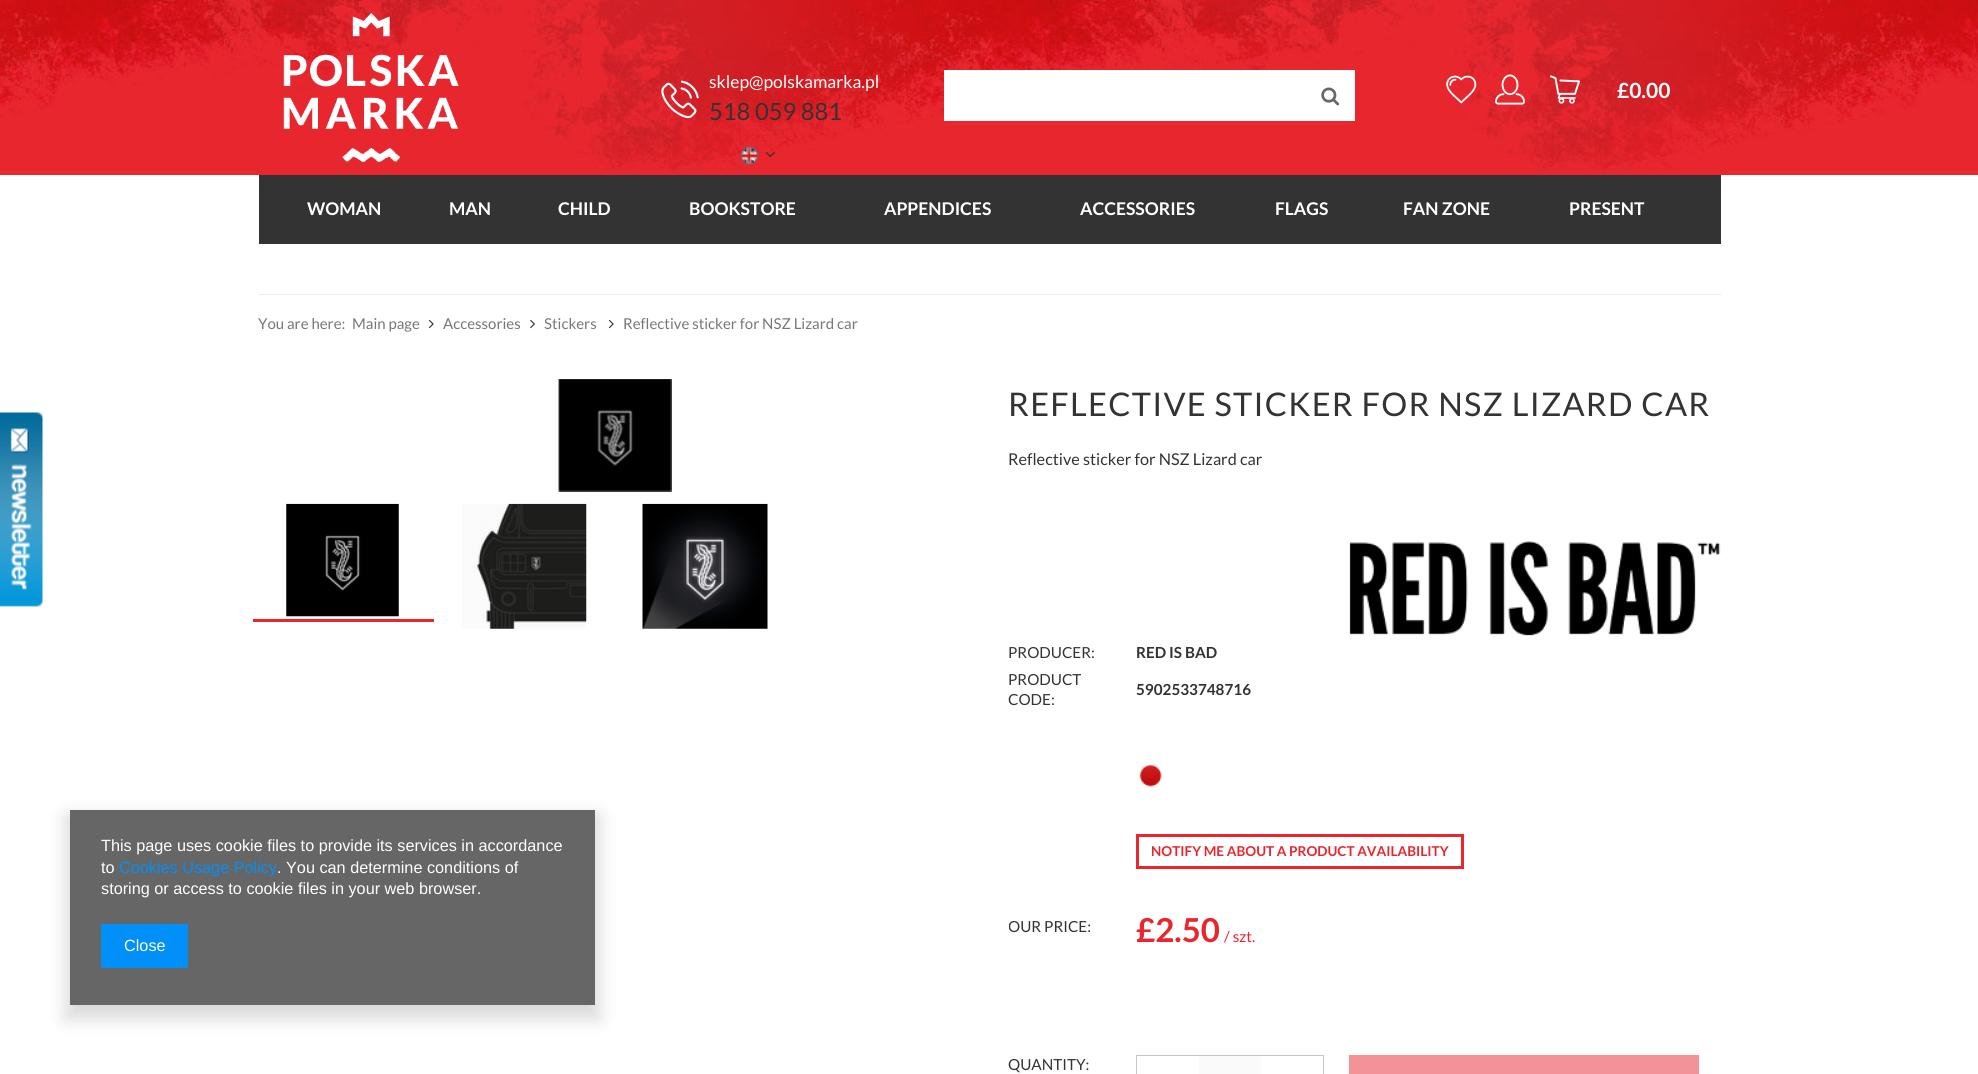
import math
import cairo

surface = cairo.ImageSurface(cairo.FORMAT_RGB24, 1978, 1074)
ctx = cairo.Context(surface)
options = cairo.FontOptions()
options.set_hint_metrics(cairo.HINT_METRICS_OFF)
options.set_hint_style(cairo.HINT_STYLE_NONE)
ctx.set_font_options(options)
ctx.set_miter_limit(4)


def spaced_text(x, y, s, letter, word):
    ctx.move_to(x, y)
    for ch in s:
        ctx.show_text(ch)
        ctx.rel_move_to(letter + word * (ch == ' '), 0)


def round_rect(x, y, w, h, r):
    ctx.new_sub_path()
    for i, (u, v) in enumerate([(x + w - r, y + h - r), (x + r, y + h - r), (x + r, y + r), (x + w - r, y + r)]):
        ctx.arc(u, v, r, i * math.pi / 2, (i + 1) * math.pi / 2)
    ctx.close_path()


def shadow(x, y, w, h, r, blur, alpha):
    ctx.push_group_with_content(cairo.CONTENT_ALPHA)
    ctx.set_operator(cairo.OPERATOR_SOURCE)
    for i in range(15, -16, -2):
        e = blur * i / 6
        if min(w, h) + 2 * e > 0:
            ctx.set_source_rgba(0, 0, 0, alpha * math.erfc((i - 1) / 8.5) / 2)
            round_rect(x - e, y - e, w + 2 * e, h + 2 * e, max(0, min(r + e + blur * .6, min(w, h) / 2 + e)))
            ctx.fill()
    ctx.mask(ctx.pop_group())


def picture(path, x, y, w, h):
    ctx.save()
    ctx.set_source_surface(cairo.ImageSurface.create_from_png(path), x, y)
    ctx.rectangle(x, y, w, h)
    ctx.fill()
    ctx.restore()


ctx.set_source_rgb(1, 1, 1)
ctx.paint()
picture("img1.png", 0, 0, 1978, 175)
picture("img2.png", 0, 412, 43, 195)
picture("img3.png", 283, 13, 176, 149)
picture("img4.png", 661, 80, 38, 39)
ctx.select_font_face("Lato")
ctx.set_font_size(17.5)
ctx.set_source_rgb(1, 1, 1)
ctx.move_to(709, 88)
ctx.show_text("sklep@polskamarka.pl")
ctx.set_font_size(23.75)
ctx.set_source_rgb(0.2, 0.2, 0.2)
ctx.move_to(709, 120)
ctx.show_text("518 059 881")
picture("img5.png", 740, 146, 19, 19)
picture("img6.png", 765, 151, 10, 7)
ctx.set_source_rgb(1, 1, 1)
ctx.rectangle(944, 70, 411, 51)
ctx.fill()
picture("img7.png", 1321, 87, 19, 19)
picture("img8.png", 1446, 75, 31, 29)
picture("img9.png", 1495, 74, 30, 31)
picture("img10.png", 1550, 75, 30, 29)
ctx.select_font_face("Lato", cairo.FONT_SLANT_NORMAL, cairo.FONT_WEIGHT_BOLD)
ctx.set_font_size(21)
ctx.move_to(1617, 98)
ctx.show_text("£0.00")
ctx.set_source_rgb(0.2, 0.2, 0.2)
ctx.rectangle(259, 175, 1462, 69)
ctx.fill()
ctx.set_font_size(17.5)
ctx.set_source_rgb(1, 1, 1)
ctx.move_to(307, 215)
ctx.show_text("WOMAN")
ctx.move_to(449, 215)
ctx.show_text("MAN")
ctx.move_to(558, 215)
ctx.show_text("CHILD")
ctx.move_to(689, 215)
ctx.show_text("BOOKSTORE")
ctx.move_to(884, 215)
ctx.show_text("APPENDICES")
ctx.move_to(1080, 215)
ctx.show_text("ACCESSORIES")
ctx.move_to(1275, 215)
ctx.show_text("FLAGS")
ctx.move_to(1403, 215)
ctx.show_text("FAN ZONE")
ctx.move_to(1569, 215)
ctx.show_text("PRESENT")
ctx.set_source_rgb(0.918, 0.918, 0.918)
ctx.rectangle(259, 294, 1462, 1)
ctx.fill()
ctx.select_font_face("Lato")
ctx.set_font_size(15)
ctx.set_source_rgb(0.467, 0.467, 0.467)
ctx.move_to(258, 329)
ctx.show_text("You are here:")
ctx.move_to(352, 329)
ctx.show_text("Main page")
picture("img11.png", 428, 319, 6, 10)
ctx.move_to(443, 329)
ctx.show_text("Accessories")
picture("img12.png", 530, 319, 5, 10)
ctx.move_to(544, 329)
ctx.show_text("Stickers")
picture("img11.png", 608, 319, 6, 10)
ctx.move_to(623, 329)
ctx.show_text("Reflective sticker for NSZ Lizard car")
picture("img13.png", 558, 379, 114, 113)
ctx.set_source_rgb(0.91, 0.149, 0.18)
ctx.rectangle(253, 619, 181, 3)
ctx.fill()
picture("img14.png", 286, 503, 113, 114)
picture("img15.png", 462, 503, 125, 126)
picture("img16.png", 642, 503, 126, 126)
ctx.set_font_size(32.55)
ctx.set_source_rgb(0.2, 0.2, 0.2)
spaced_text(1008, 416, "REFLECTIVE STICKER FOR NSZ LIZARD CAR", 1.25, 0)
ctx.set_font_size(16.25)
ctx.move_to(1008, 465)
ctx.show_text("Reflective sticker for NSZ Lizard car")
picture("img17.png", 1349, 541, 372, 95)
ctx.set_font_size(15.25)
ctx.move_to(1008, 658)
ctx.show_text("PRODUCER:")
ctx.select_font_face("Lato", cairo.FONT_SLANT_NORMAL, cairo.FONT_WEIGHT_BOLD)
ctx.move_to(1136, 658)
ctx.show_text("RED IS BAD")
ctx.select_font_face("Lato")
ctx.move_to(1008, 685)
ctx.show_text("PRODUCT")
ctx.move_to(1008, 705)
ctx.show_text("CODE:")
ctx.select_font_face("Lato", cairo.FONT_SLANT_NORMAL, cairo.FONT_WEIGHT_BOLD)
ctx.move_to(1136, 695)
ctx.show_text("5902533748716")
picture("img18.png", 1139, 764, 23, 23)
ctx.rectangle(1137.5, 835.5, 325, 32)
ctx.set_source_rgb(0.91, 0.149, 0.18)
ctx.set_line_width(3)
ctx.stroke()
ctx.set_font_size(13.6)
ctx.move_to(1151, 856)
ctx.show_text("NOTIFY ME ABOUT A PRODUCT AVAILABILITY")
ctx.save()
ctx.rectangle(1009, 913, 712, 80)
ctx.clip()
ctx.select_font_face("Lato")
ctx.set_font_size(15.25)
ctx.set_source_rgb(0.2, 0.2, 0.2)
ctx.move_to(1008, 932)
ctx.show_text("OUR PRICE:")
ctx.restore()
ctx.set_font_size(33)
ctx.move_to(1136, 942)
ctx.show_text("£2.50")
ctx.select_font_face("Lato")
ctx.set_font_size(15.25)
ctx.move_to(1224, 942)
ctx.show_text("/ szt.")
ctx.set_source_rgb(0.2, 0.2, 0.2)
ctx.move_to(1008, 1070)
ctx.show_text("QUANTITY:")
ctx.set_source_rgb(0.769, 0.78, 0.784)
ctx.rectangle(1136, 1055, 188, 1)
ctx.fill()
ctx.rectangle(1136, 1055, 1, 19)
ctx.fill()
ctx.set_source_rgb(0.98, 0.98, 0.98)
ctx.rectangle(1199, 1056, 62, 18)
ctx.fill()
ctx.set_source_rgb(0.769, 0.78, 0.784)
ctx.rectangle(1323, 1055, 1, 19)
ctx.fill()
ctx.set_source_rgb(0.957, 0.576, 0.592)
ctx.rectangle(1349, 1055, 350, 19)
ctx.fill()
ctx.set_source_rgb(0, 0, 0)
shadow(66, 816, 533, 203, 0, 9.5, 0.15)
ctx.set_source_rgb(0.4, 0.4, 0.4)
ctx.rectangle(70, 810, 525, 195)
ctx.fill()
ctx.select_font_face("Liberation Sans")
ctx.set_font_size(16.25)
ctx.set_source_rgb(1, 1, 1)
ctx.move_to(101, 851)
ctx.show_text("This page uses cookie files to provide its services in accordance")
ctx.move_to(101, 873)
ctx.show_text("to")
ctx.set_source_rgb(0, 0.565, 0.965)
ctx.move_to(119, 873)
ctx.show_text("Cookies Usage Policy")
ctx.set_source_rgb(1, 1, 1)
ctx.move_to(277, 873)
ctx.show_text(". You can determine conditions of")
ctx.move_to(101, 894)
ctx.show_text("storing or access to cookie files in your web browser.")
ctx.set_source_rgb(0, 0.565, 0.965)
ctx.rectangle(101, 924, 87, 44)
ctx.fill()
ctx.set_source_rgb(1, 1, 1)
ctx.move_to(124, 951)
ctx.show_text("Close")
surface.write_to_png("page.png")
